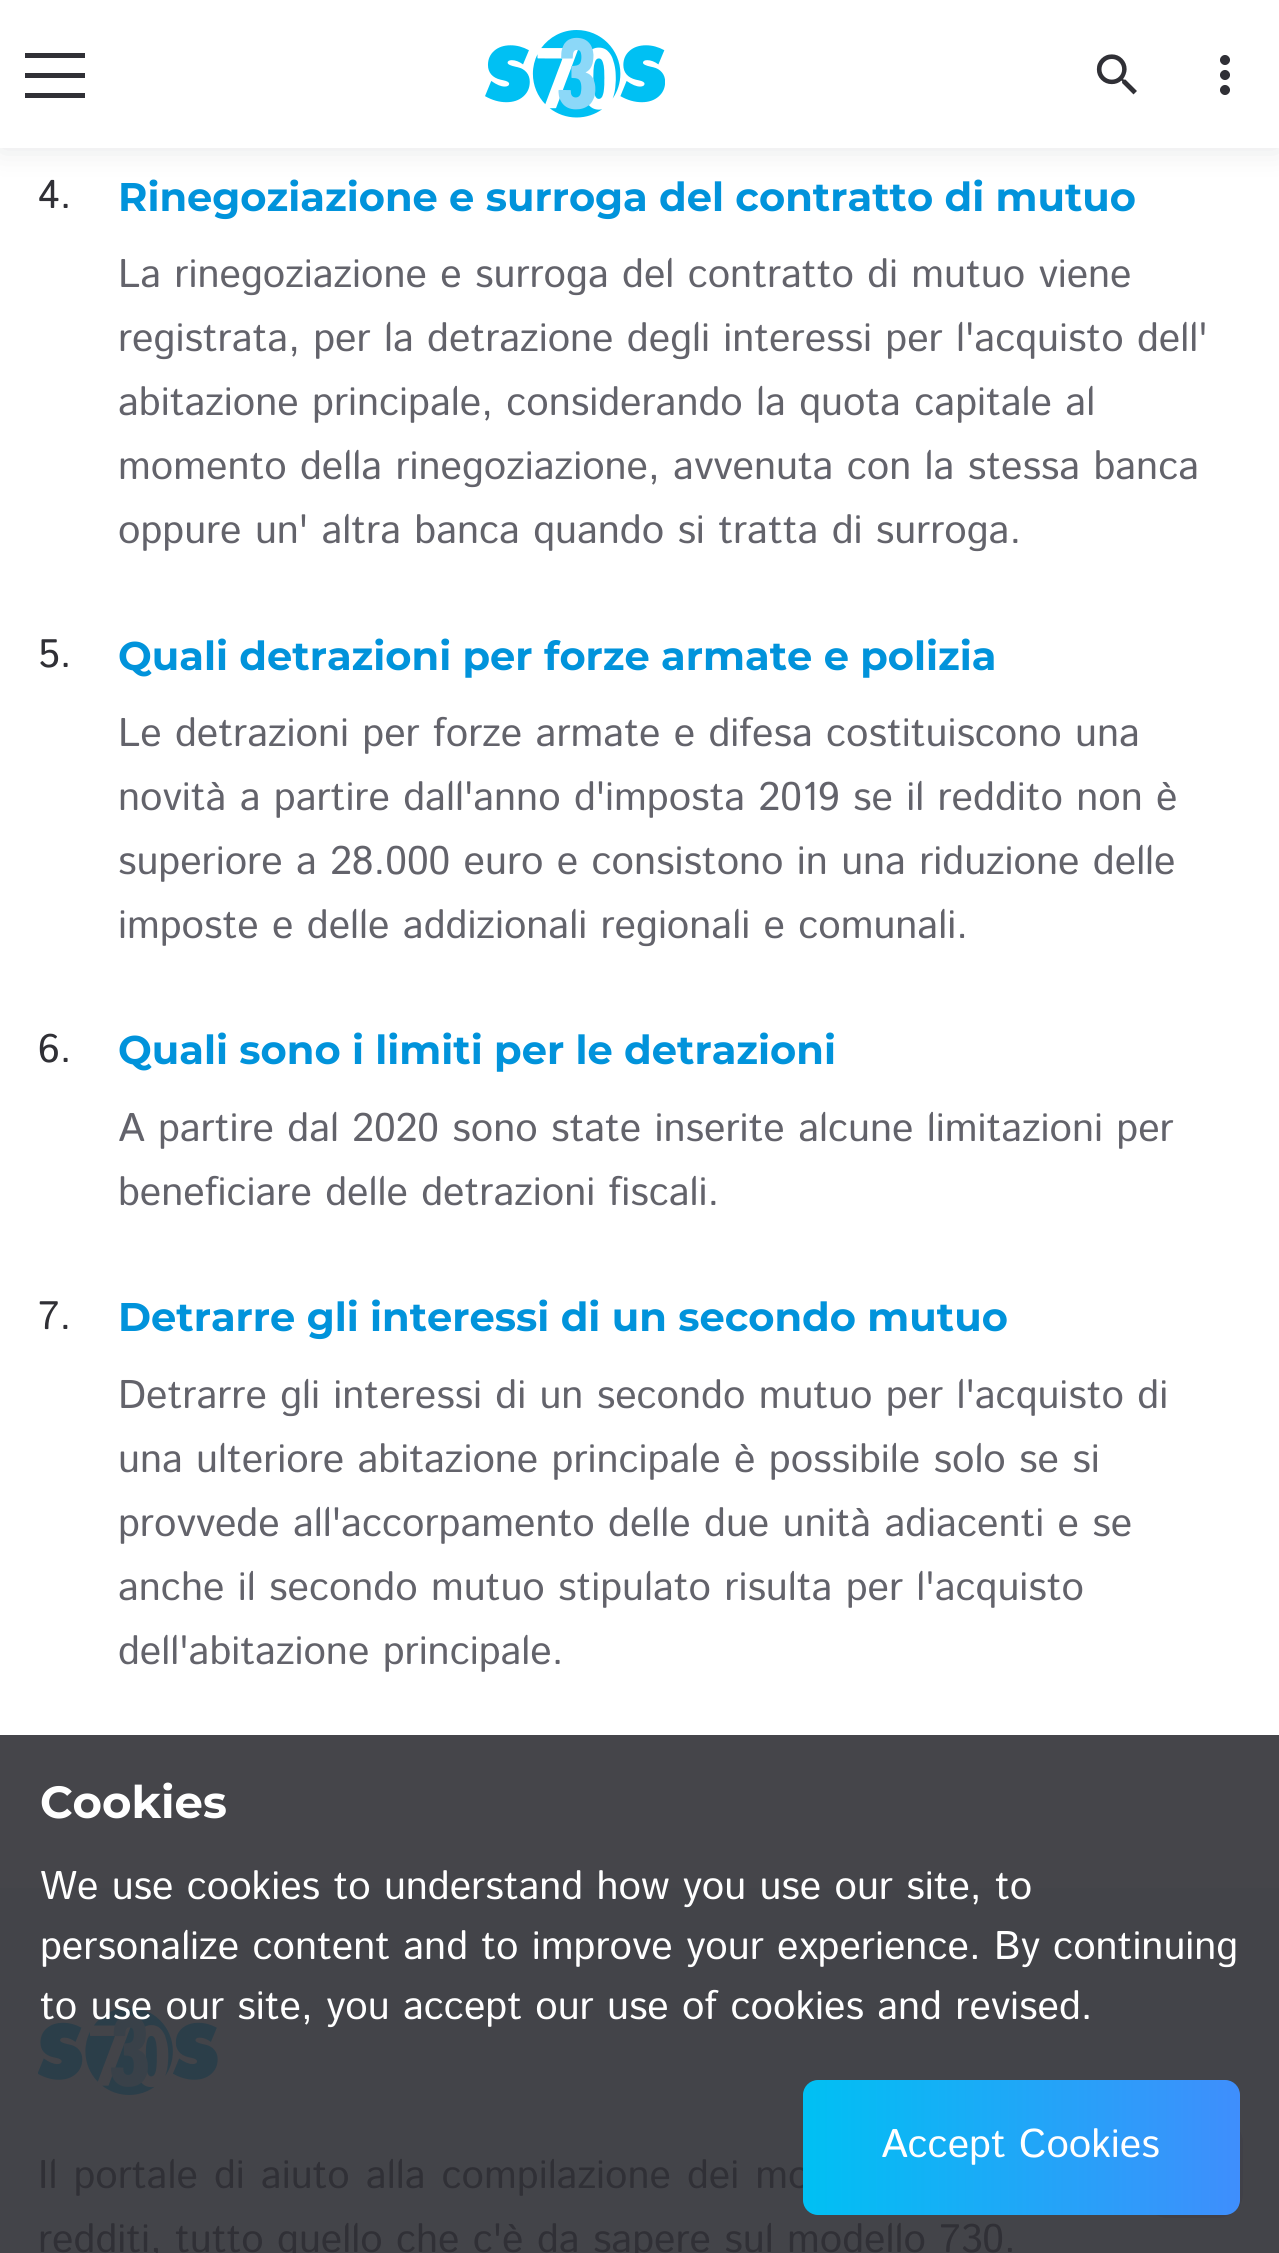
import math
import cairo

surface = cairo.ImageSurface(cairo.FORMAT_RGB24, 1279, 2253)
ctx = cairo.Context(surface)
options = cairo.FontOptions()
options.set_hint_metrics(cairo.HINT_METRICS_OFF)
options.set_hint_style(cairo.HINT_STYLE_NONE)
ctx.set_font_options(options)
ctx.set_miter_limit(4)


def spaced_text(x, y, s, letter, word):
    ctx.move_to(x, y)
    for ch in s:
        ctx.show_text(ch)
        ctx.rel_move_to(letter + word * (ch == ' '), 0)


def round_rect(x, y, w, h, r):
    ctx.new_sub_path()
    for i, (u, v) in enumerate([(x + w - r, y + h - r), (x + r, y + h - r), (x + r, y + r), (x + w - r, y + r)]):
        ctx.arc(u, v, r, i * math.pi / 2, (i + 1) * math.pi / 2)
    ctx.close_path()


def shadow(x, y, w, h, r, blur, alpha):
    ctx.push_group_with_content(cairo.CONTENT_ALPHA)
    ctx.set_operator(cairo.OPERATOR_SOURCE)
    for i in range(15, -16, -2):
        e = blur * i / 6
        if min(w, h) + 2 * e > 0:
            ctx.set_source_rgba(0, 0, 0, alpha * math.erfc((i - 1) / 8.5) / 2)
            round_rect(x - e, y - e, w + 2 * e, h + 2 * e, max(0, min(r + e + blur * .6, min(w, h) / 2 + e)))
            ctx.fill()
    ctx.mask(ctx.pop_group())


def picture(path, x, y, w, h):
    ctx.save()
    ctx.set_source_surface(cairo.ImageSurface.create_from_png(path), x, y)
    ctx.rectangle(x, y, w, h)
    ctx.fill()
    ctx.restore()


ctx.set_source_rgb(1, 1, 1)
ctx.paint()
ctx.set_source_rgb(0.271, 0.271, 0.29)
ctx.rectangle(0, 1735, 1279, 153)
ctx.fill()
ctx.set_source_rgb(0.302, 0.322, 0.369)
shadow(0, 0, 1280, 148, 0, 16, 0.15)
ctx.set_source_rgb(1, 1, 1)
ctx.rectangle(0, 0, 1279, 148)
ctx.fill()
ctx.set_source_rgb(0.188, 0.188, 0.212)
ctx.rectangle(25, 53, 60, 5)
ctx.fill()
ctx.rectangle(25, 73, 60, 5)
ctx.fill()
ctx.rectangle(25, 93, 60, 5)
ctx.fill()
picture("img1.png", 485, 30, 180, 88)
picture("img2.png", 1096, 54, 41, 41)
picture("img3.png", 1220, 55, 10, 40)
ctx.select_font_face("Istok Web")
ctx.set_font_size(40)
ctx.move_to(38, 208)
ctx.show_text("4.")
ctx.select_font_face("Montserrat", cairo.FONT_SLANT_NORMAL, cairo.FONT_WEIGHT_BOLD)
ctx.set_source_rgb(0.004, 0.576, 0.859)
ctx.move_to(118, 211)
ctx.show_text("Rinegoziazione e surroga del contratto di mutuo")
ctx.select_font_face("Istok Web")
ctx.set_source_rgb(0.388, 0.388, 0.42)
ctx.move_to(118, 287)
ctx.show_text("La rinegoziazione e surroga del contratto di mutuo viene")
ctx.move_to(118, 351)
ctx.show_text("registrata, per la detrazione degli interessi per l'acquisto dell'")
ctx.move_to(118, 415)
ctx.show_text("abitazione principale, considerando la quota capitale al")
ctx.move_to(118, 479)
ctx.show_text("momento della rinegoziazione, avvenuta con la stessa banca")
ctx.move_to(118, 543)
ctx.show_text("oppure un' altra banca quando si tratta di surroga.")
ctx.set_source_rgb(0.188, 0.188, 0.212)
ctx.move_to(38, 667)
ctx.show_text("5.")
ctx.select_font_face("Montserrat", cairo.FONT_SLANT_NORMAL, cairo.FONT_WEIGHT_BOLD)
ctx.set_source_rgb(0.004, 0.576, 0.859)
ctx.move_to(118, 670)
ctx.show_text("Quali detrazioni per forze armate e polizia")
ctx.select_font_face("Istok Web")
ctx.set_source_rgb(0.388, 0.388, 0.42)
ctx.move_to(118, 746)
ctx.show_text("Le detrazioni per forze armate e difesa costituiscono una")
ctx.move_to(118, 810)
ctx.show_text("novità a partire dall'anno d'imposta 2019 se il reddito non è")
ctx.move_to(118, 874)
ctx.show_text("superiore a 28.000 euro e consistono in una riduzione delle")
ctx.move_to(118, 938)
ctx.show_text("imposte e delle addizionali regionali e comunali.")
ctx.set_source_rgb(0.188, 0.188, 0.212)
ctx.move_to(38, 1062)
ctx.show_text("6.")
ctx.select_font_face("Montserrat", cairo.FONT_SLANT_NORMAL, cairo.FONT_WEIGHT_BOLD)
ctx.set_source_rgb(0.004, 0.576, 0.859)
ctx.move_to(118, 1064)
ctx.show_text("Quali sono i limiti per le detrazioni")
ctx.select_font_face("Istok Web")
ctx.set_source_rgb(0.388, 0.388, 0.42)
ctx.move_to(118, 1141)
ctx.show_text("A partire dal 2020 sono state inserite alcune limitazioni per")
ctx.move_to(118, 1205)
ctx.show_text("beneficiare delle detrazioni fiscali.")
ctx.set_source_rgb(0.188, 0.188, 0.212)
ctx.move_to(38, 1329)
ctx.show_text("7.")
ctx.select_font_face("Montserrat", cairo.FONT_SLANT_NORMAL, cairo.FONT_WEIGHT_BOLD)
ctx.set_source_rgb(0.004, 0.576, 0.859)
ctx.move_to(118, 1331)
ctx.show_text("Detrarre gli interessi di un secondo mutuo")
ctx.select_font_face("Istok Web")
ctx.set_source_rgb(0.388, 0.388, 0.42)
ctx.move_to(118, 1408)
ctx.show_text("Detrarre gli interessi di un secondo mutuo per l'acquisto di")
ctx.move_to(118, 1472)
ctx.show_text("una ulteriore abitazione principale è possibile solo se si")
ctx.move_to(118, 1536)
ctx.show_text("provvede all'accorpamento delle due unità adiacenti e se")
ctx.move_to(118, 1600)
ctx.show_text("anche il secondo mutuo stipulato risulta per l'acquisto")
ctx.move_to(118, 1664)
ctx.show_text("dell'abitazione principale.")
ctx.set_source_rgb(0.263, 0.267, 0.286)
ctx.rectangle(0, 1888, 1279, 365)
ctx.fill()
picture("img4.png", 38, 2008, 180, 87)
ctx.set_source_rgb(0.188, 0.188, 0.212)
spaced_text(38, 2188, "Il portale di aiuto alla compilazione dei mo", 0, 2.75)
ctx.move_to(38, 2252)
ctx.show_text("redditi, tutto quello che c'è da sapere sul modello 730.")
ctx.select_font_face("Montserrat", cairo.FONT_SLANT_NORMAL, cairo.FONT_WEIGHT_BOLD)
ctx.set_font_size(45)
ctx.set_source_rgb(1, 1, 1)
ctx.move_to(40, 1818)
ctx.show_text("Cookies")
ctx.select_font_face("Istok Web")
ctx.set_font_size(40)
ctx.move_to(40, 1899)
ctx.show_text("We use cookies to understand how you use our site, to")
ctx.move_to(40, 1959)
ctx.show_text("personalize content and to improve your experience. By continuing")
ctx.move_to(40, 2019)
ctx.show_text("to use our site, you accept our use of cookies and revised.")
round_rect(1144.5, 2119.5, 97, 97, 23.5)
ctx.set_source_rgb(0.251, 0.251, 0.278)
ctx.set_line_width(3)
ctx.stroke()
gradient = cairo.LinearGradient(803, 2148, 1240, 2148)
gradient.add_color_stop_rgba(0, 0, 0.753, 0.953, 1)
gradient.add_color_stop_rgba(1, 0.247, 0.557, 0.988, 1)
ctx.set_source(gradient)
round_rect(803, 2080, 437, 135, 15)
ctx.fill()
ctx.set_source_rgb(1, 1, 1)
ctx.move_to(881, 2157)
ctx.show_text("Accept Cookies")
surface.write_to_png("page.png")
